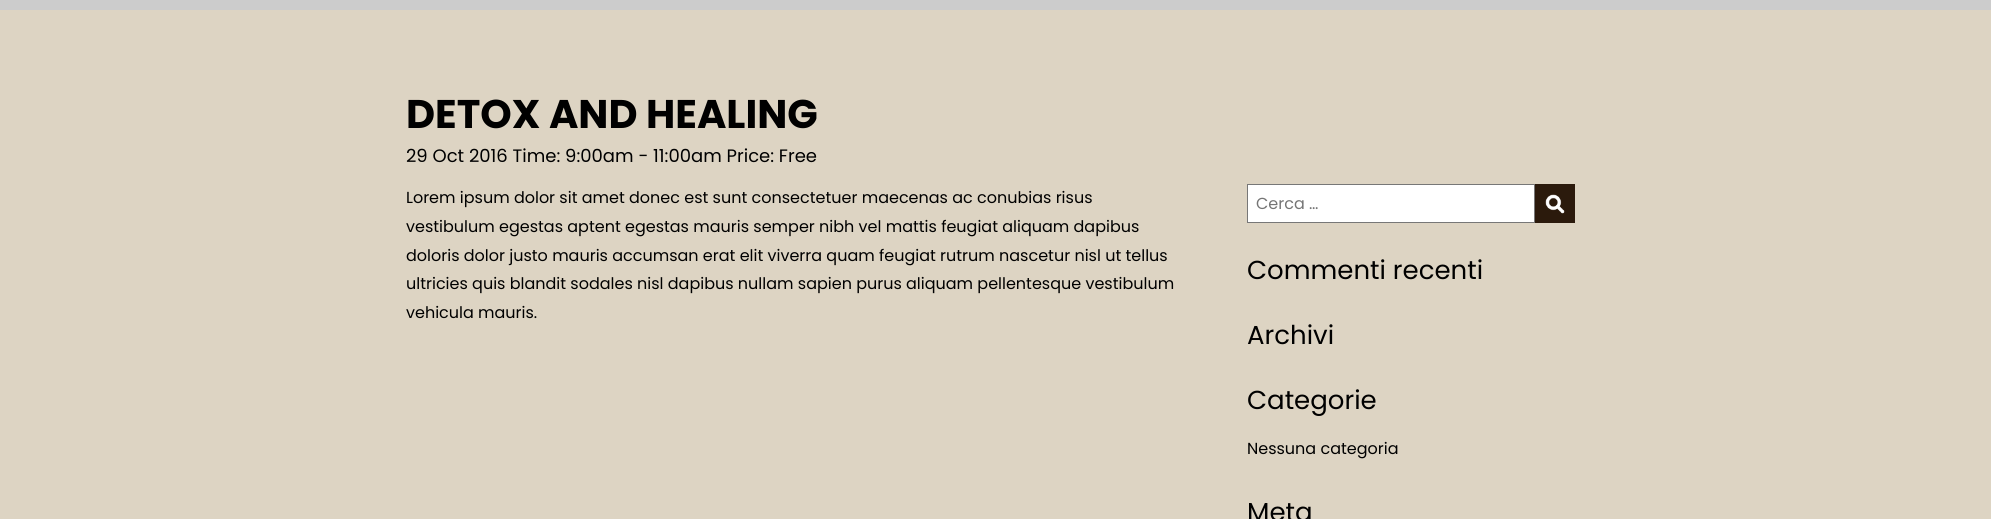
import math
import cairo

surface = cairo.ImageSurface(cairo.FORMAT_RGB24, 1991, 519)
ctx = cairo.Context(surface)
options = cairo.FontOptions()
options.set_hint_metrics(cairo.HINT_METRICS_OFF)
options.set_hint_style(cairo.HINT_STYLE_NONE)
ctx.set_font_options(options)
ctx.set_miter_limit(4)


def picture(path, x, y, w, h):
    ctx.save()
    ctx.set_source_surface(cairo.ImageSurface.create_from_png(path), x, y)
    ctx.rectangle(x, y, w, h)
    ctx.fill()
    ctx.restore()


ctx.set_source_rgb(0.867, 0.831, 0.765)
ctx.paint()
ctx.set_source_rgb(0.8, 0.8, 0.8)
ctx.rectangle(0, 0, 1991, 10)
ctx.fill()
ctx.select_font_face("Poppins", cairo.FONT_SLANT_NORMAL, cairo.FONT_WEIGHT_BOLD)
ctx.set_font_size(40)
ctx.set_source_rgb(0, 0, 0)
ctx.move_to(406, 128)
ctx.show_text("DETOX AND HEALING")
ctx.select_font_face("Poppins")
ctx.set_font_size(18)
ctx.move_to(406, 162)
ctx.show_text("29 Oct 2016 Time: 9:00am - 11:00am Price: Free")
ctx.set_font_size(16)
ctx.move_to(406, 203)
ctx.show_text("Lorem ipsum dolor sit amet donec est sunt consectetuer maecenas ac conubias risus")
ctx.move_to(406, 232)
ctx.show_text("vestibulum egestas aptent egestas mauris semper nibh vel mattis feugiat aliquam dapibus")
ctx.move_to(406, 261)
ctx.show_text("doloris dolor justo mauris accumsan erat elit viverra quam feugiat rutrum nascetur nisl ut tellus")
ctx.move_to(406, 289)
ctx.show_text("ultricies quis blandit sodales nisl dapibus nullam sapien purus aliquam pellentesque vestibulum")
ctx.move_to(406, 318)
ctx.show_text("vehicula mauris.")
ctx.set_source_rgb(1, 1, 1)
ctx.rectangle(1247.5, 184.5, 287, 38)
ctx.fill_preserve()
ctx.set_source_rgb(0.467, 0.467, 0.467)
ctx.set_line_width(1)
ctx.stroke()
ctx.set_source_rgb(0.459, 0.459, 0.459)
ctx.move_to(1256, 209)
ctx.show_text("Cerca …")
ctx.set_source_rgb(0.169, 0.102, 0.047)
ctx.rectangle(1535, 184, 40, 39)
ctx.fill()
picture("img1.png", 1545, 194, 20, 20)
ctx.set_font_size(26)
ctx.set_source_rgb(0, 0, 0)
ctx.move_to(1247, 279)
ctx.show_text("Commenti recenti")
ctx.move_to(1247, 344)
ctx.show_text("Archivi")
ctx.move_to(1247, 409)
ctx.show_text("Categorie")
ctx.set_font_size(16)
ctx.move_to(1247, 454)
ctx.show_text("Nessuna categoria")
ctx.set_font_size(26)
ctx.move_to(1247, 521)
ctx.show_text("Meta")
surface.write_to_png("page.png")
